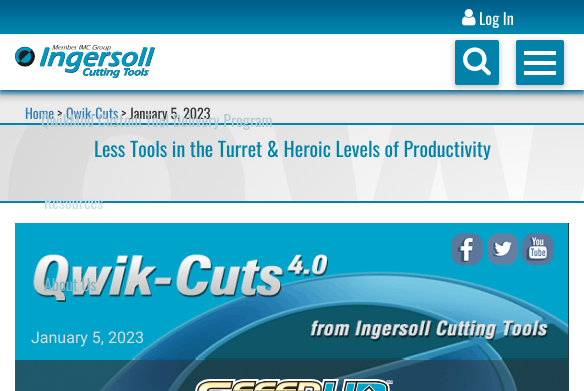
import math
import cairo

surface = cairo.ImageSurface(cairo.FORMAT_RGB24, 584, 391)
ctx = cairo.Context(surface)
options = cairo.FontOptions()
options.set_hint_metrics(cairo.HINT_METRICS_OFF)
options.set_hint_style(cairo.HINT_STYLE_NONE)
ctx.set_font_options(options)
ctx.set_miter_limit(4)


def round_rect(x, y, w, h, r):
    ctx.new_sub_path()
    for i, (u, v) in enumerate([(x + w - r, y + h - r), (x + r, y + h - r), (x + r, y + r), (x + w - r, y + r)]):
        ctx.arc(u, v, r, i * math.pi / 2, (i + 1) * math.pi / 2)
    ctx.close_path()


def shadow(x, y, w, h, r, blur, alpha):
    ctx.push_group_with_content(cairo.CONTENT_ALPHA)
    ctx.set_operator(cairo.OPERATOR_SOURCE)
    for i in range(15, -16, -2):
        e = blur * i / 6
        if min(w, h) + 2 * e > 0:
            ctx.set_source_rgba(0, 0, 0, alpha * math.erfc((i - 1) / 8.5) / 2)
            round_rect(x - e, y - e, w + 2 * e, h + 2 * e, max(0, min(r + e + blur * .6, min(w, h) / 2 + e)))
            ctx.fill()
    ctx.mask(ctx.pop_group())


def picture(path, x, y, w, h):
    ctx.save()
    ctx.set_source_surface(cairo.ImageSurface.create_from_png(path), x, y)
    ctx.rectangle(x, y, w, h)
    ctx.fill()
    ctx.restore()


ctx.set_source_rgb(1, 1, 1)
ctx.paint()
ctx.set_source_rgb(0.918, 0.918, 0.918)
ctx.rectangle(0, 93, 584, 30)
ctx.fill()
ctx.save()
ctx.rectangle(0, 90, 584, 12)
ctx.clip()
ctx.set_source_rgb(0, 0, 0)
shadow(0, 44, 584, 55, 0, 3.5, 0.12)
ctx.restore()
ctx.save()
ctx.set_fill_rule(cairo.FILL_RULE_EVEN_ODD)
ctx.new_path()
ctx.move_to(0, 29)
ctx.line_to(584, 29)
ctx.line_to(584, 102)
ctx.line_to(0, 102)
ctx.close_path()
ctx.move_to(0, 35)
ctx.line_to(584, 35)
ctx.line_to(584, 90)
ctx.line_to(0, 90)
ctx.close_path()
ctx.clip()
ctx.set_source_rgb(0, 0.388, 0.561)
shadow(0, 38, 584, 55, 0, 2.5, 1)
ctx.restore()
ctx.set_source_rgb(0, 0, 0)
shadow(455, 42, 44, 45, 2, 5, 0.12)
shadow(455, 42, 44, 45, 2, 2.5, 0.16)
shadow(516, 42, 48, 45, 2, 5, 0.12)
shadow(516, 42, 48, 45, 2, 2.5, 0.16)
gradient = cairo.LinearGradient(292, 0, 292, 34)
gradient.add_color_stop_rgba(0, 0, 0.357, 0.533, 1)
gradient.add_color_stop_rgba(1, 0, 0.533, 0.69, 1)
ctx.set_source(gradient)
ctx.rectangle(0, 0, 584, 34)
ctx.fill()
picture("img1.png", 462, 9, 14, 17)
ctx.select_font_face("Oswald")
ctx.set_font_size(16)
ctx.set_source_rgb(1, 1, 1)
ctx.move_to(479, 25)
ctx.show_text("Log In")
picture("img2.png", 15, 45, 140, 33)
ctx.set_source_rgb(0, 0.51, 0.671)
round_rect(455, 40, 44, 45, 2)
ctx.fill()
picture("img3.png", 463, 47, 28, 29)
round_rect(516, 40, 48, 45, 2)
ctx.fill()
ctx.set_source_rgb(1, 1, 1)
ctx.rectangle(524, 71, 32, 4)
ctx.fill()
ctx.rectangle(524, 61, 32, 4)
ctx.fill()
ctx.rectangle(524, 51, 32, 4)
ctx.fill()
ctx.set_font_size(14)
ctx.set_source_rgb(0.2, 0.478, 0.718)
ctx.move_to(25, 119)
ctx.show_text("Home")
ctx.set_source_rgb(0.2, 0.2, 0.2)
ctx.move_to(57, 119)
ctx.show_text(">")
ctx.set_source_rgb(0.2, 0.478, 0.718)
ctx.move_to(66, 119)
ctx.show_text("Qwik-Cuts")
ctx.set_source_rgb(0.2, 0.2, 0.2)
ctx.move_to(121, 119)
ctx.show_text("> January 5, 2023")
picture("img4.png", 0, 125, 584, 76)
ctx.set_source_rgb(0, 0.514, 0.671)
ctx.rectangle(0, 123, 584, 2)
ctx.fill()
ctx.set_font_size(16)
ctx.set_source_rgb(0.698, 0.796, 0.831)
ctx.move_to(41, 127)
ctx.show_text("QwikMod Custom Tool Delivery Program")
ctx.set_source_rgb(0, 0.514, 0.671)
ctx.rectangle(0, 201, 584, 2)
ctx.fill()
ctx.set_source_rgb(0.776, 0.878, 0.906)
ctx.move_to(44, 209)
ctx.show_text("Resources")
picture("img5.png", 15, 223, 554, 136)
ctx.set_source_rgb(0.49, 0.71, 0.765)
ctx.move_to(44, 291)
ctx.show_text("About Us")
ctx.set_font_size(20)
ctx.set_source_rgb(0, 0.514, 0.671)
ctx.move_to(94, 157)
ctx.show_text("Less Tools in the Turret & Heroic Levels of Productivity")
picture("img6.png", 451, 233, 32, 32)
picture("img7.png", 487, 233, 32, 32)
picture("img8.png", 522, 233, 32, 32)
ctx.select_font_face("Roboto")
ctx.set_font_size(16)
ctx.set_source_rgb(0.867, 0.855, 0.875)
ctx.move_to(31, 343)
ctx.show_text("January 5, 2023")
picture("img9.png", 15, 359, 554, 32)
picture("img10.png", 195, 379, 198, 12)
surface.write_to_png("page.png")
